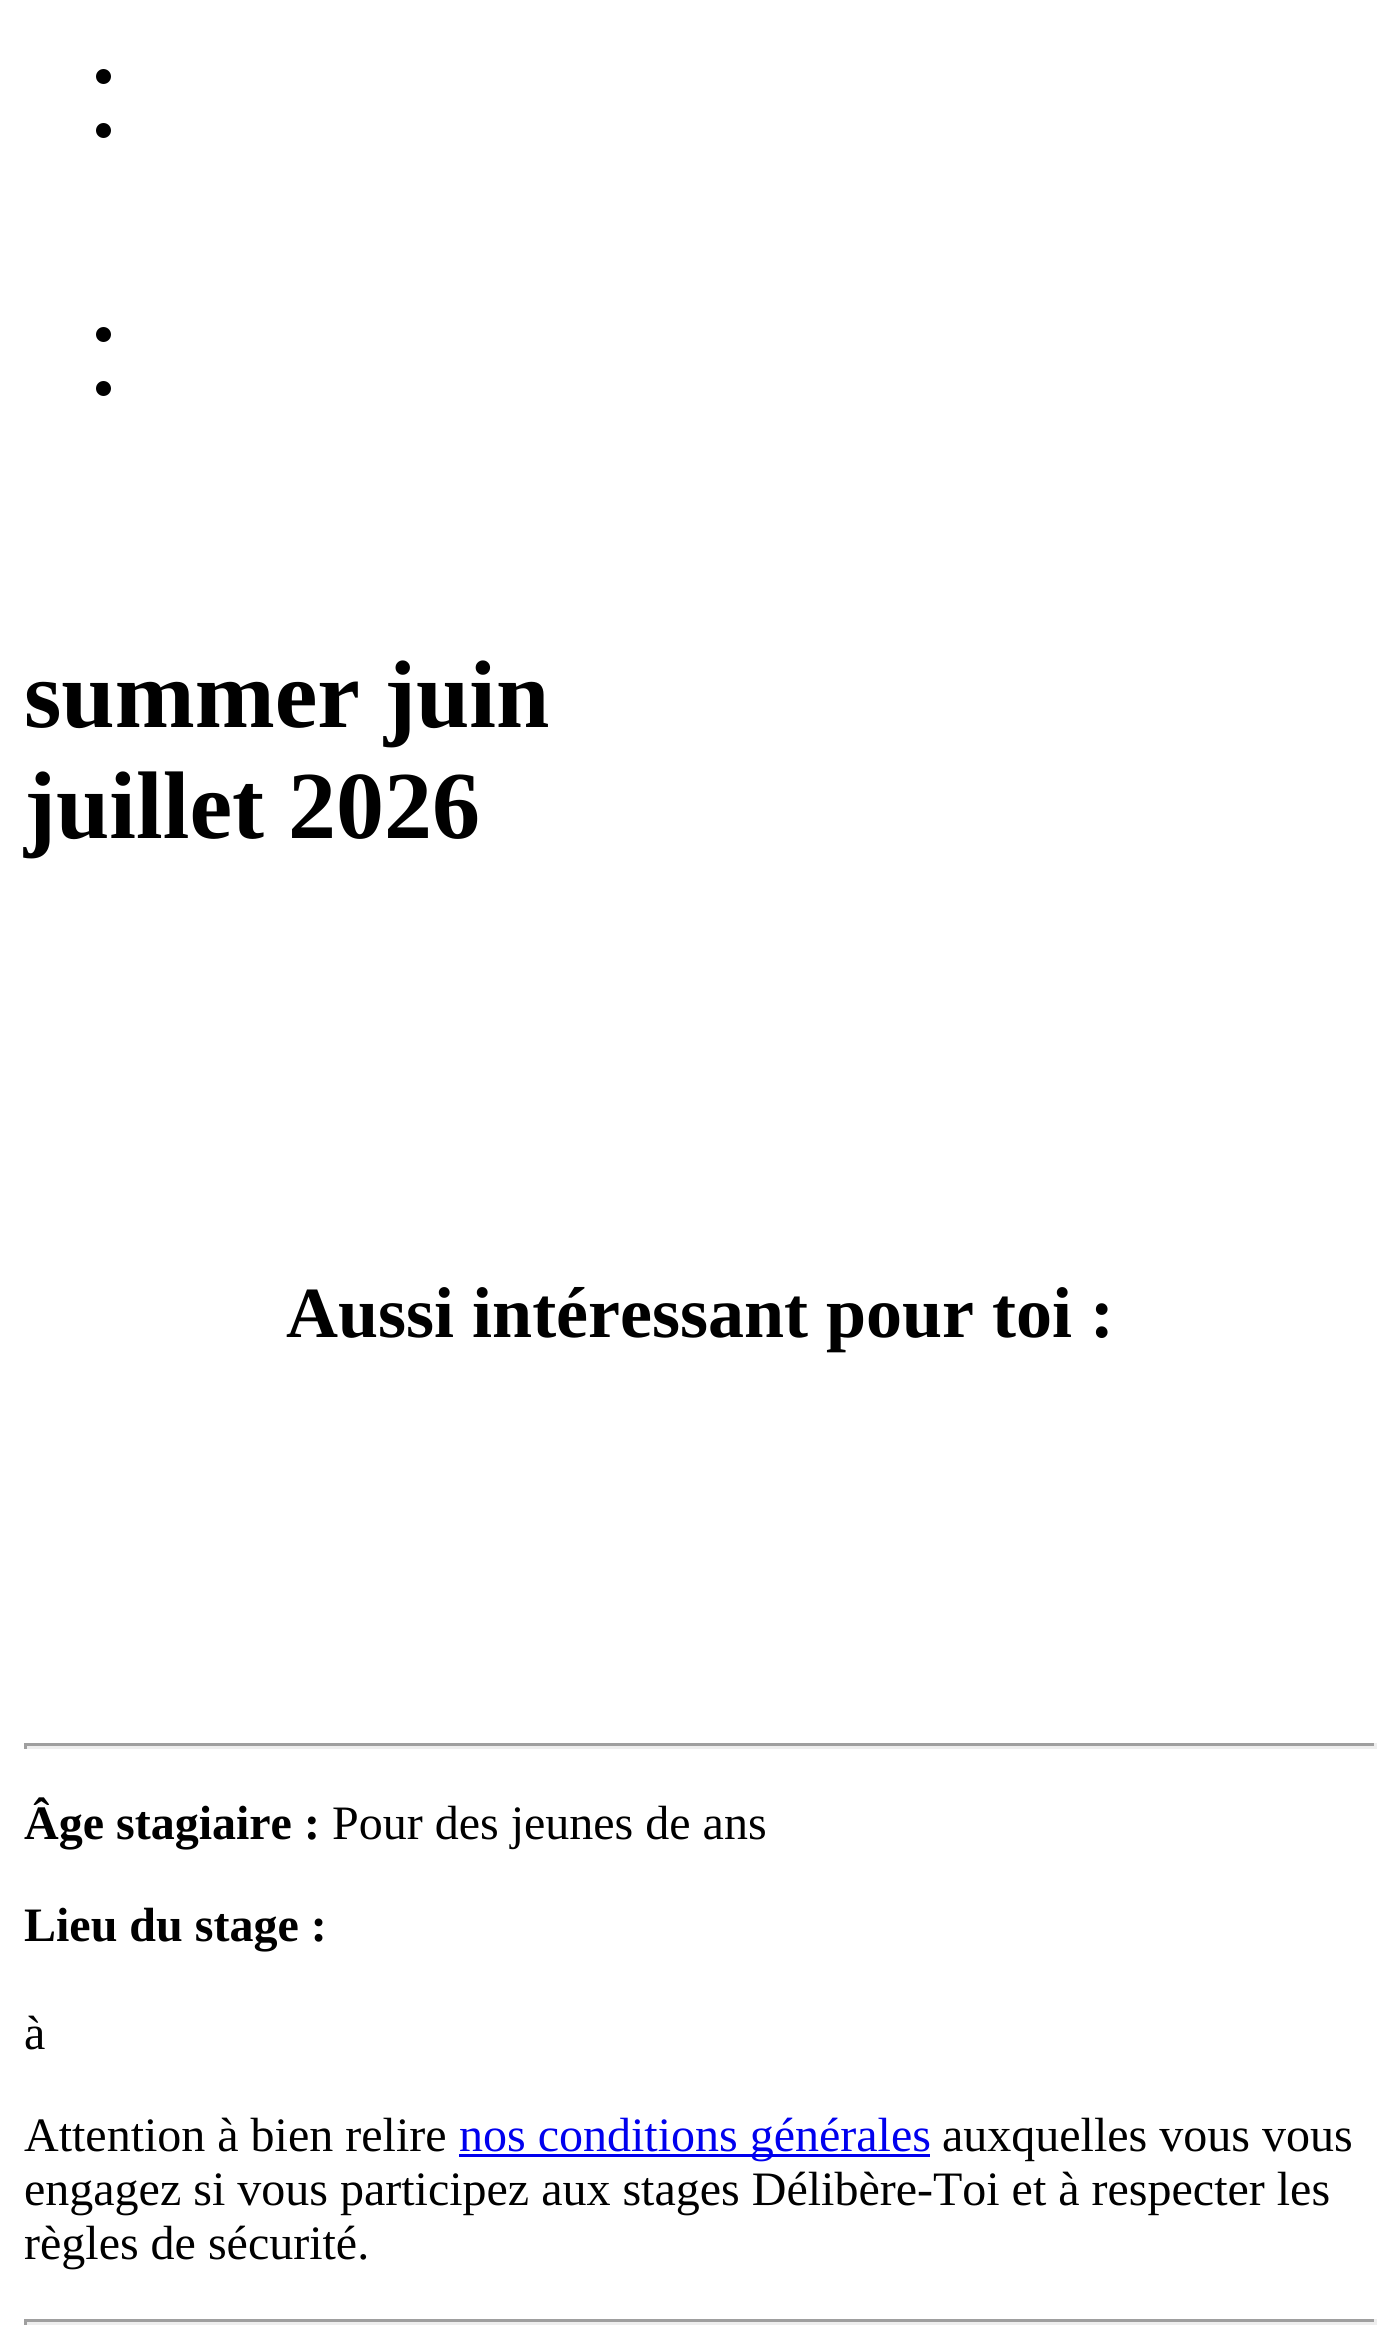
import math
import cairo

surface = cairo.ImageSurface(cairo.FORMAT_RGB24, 1400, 2327)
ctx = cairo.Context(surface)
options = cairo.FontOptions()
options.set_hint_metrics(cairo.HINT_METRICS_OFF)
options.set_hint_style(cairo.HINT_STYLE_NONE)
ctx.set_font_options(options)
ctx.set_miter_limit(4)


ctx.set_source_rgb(1, 1, 1)
ctx.paint()
ctx.set_source_rgb(0, 0, 0)
ctx.arc(103.5, 76.5, 7.5, 0, 2 * math.pi)
ctx.fill()
ctx.arc(103.5, 130.5, 7.5, 0, 2 * math.pi)
ctx.fill()
ctx.arc(103.5, 334.5, 7.5, 0, 2 * math.pi)
ctx.fill()
ctx.arc(103.5, 388.5, 7.5, 0, 2 * math.pi)
ctx.fill()
ctx.select_font_face("Liberation Serif", cairo.FONT_SLANT_NORMAL, cairo.FONT_WEIGHT_BOLD)
ctx.set_font_size(96)
ctx.move_to(24, 727)
ctx.show_text("summer juin")
ctx.move_to(24, 838)
ctx.show_text("juillet 2026")
ctx.set_font_size(72)
ctx.move_to(286, 1337)
ctx.show_text("Aussi intéressant pour toi :")
ctx.set_source_rgb(0.624, 0.624, 0.624)
ctx.rectangle(24, 1743, 1353, 3)
ctx.fill()
ctx.set_source_rgb(0.933, 0.933, 0.933)
ctx.rectangle(1374, 1743, 3, 6)
ctx.fill()
ctx.rectangle(24, 1746, 1353, 3)
ctx.fill()
ctx.set_source_rgb(0.624, 0.624, 0.624)
ctx.rectangle(24, 1743, 3, 6)
ctx.fill()
ctx.set_font_size(48)
ctx.set_source_rgb(0, 0, 0)
ctx.move_to(24, 1839)
ctx.show_text("Âge stagiaire :")
ctx.select_font_face("Liberation Serif")
ctx.move_to(332, 1839)
ctx.show_text("Pour des jeunes de ans")
ctx.select_font_face("Liberation Serif", cairo.FONT_SLANT_NORMAL, cairo.FONT_WEIGHT_BOLD)
ctx.move_to(24, 1941)
ctx.show_text("Lieu du stage :")
ctx.select_font_face("Liberation Serif")
ctx.move_to(24, 2049)
ctx.show_text("à")
ctx.move_to(24, 2151)
ctx.show_text("Attention à bien relire")
ctx.set_source_rgb(0, 0, 0.933)
ctx.rectangle(459, 2154, 471, 3)
ctx.fill()
ctx.move_to(459, 2151)
ctx.show_text("nos conditions générales")
ctx.set_source_rgb(0, 0, 0)
ctx.move_to(942, 2151)
ctx.show_text("auxquelles vous vous")
ctx.move_to(24, 2205)
ctx.show_text("engagez si vous participez aux stages Délibère-Toi et à respecter les")
ctx.move_to(24, 2259)
ctx.show_text("règles de sécurité.")
ctx.set_source_rgb(0.624, 0.624, 0.624)
ctx.rectangle(24, 2319, 1353, 3)
ctx.fill()
ctx.set_source_rgb(0.933, 0.933, 0.933)
ctx.rectangle(1374, 2319, 3, 6)
ctx.fill()
ctx.rectangle(24, 2322, 1353, 3)
ctx.fill()
ctx.set_source_rgb(0.624, 0.624, 0.624)
ctx.rectangle(24, 2319, 3, 6)
ctx.fill()
surface.write_to_png("page.png")
